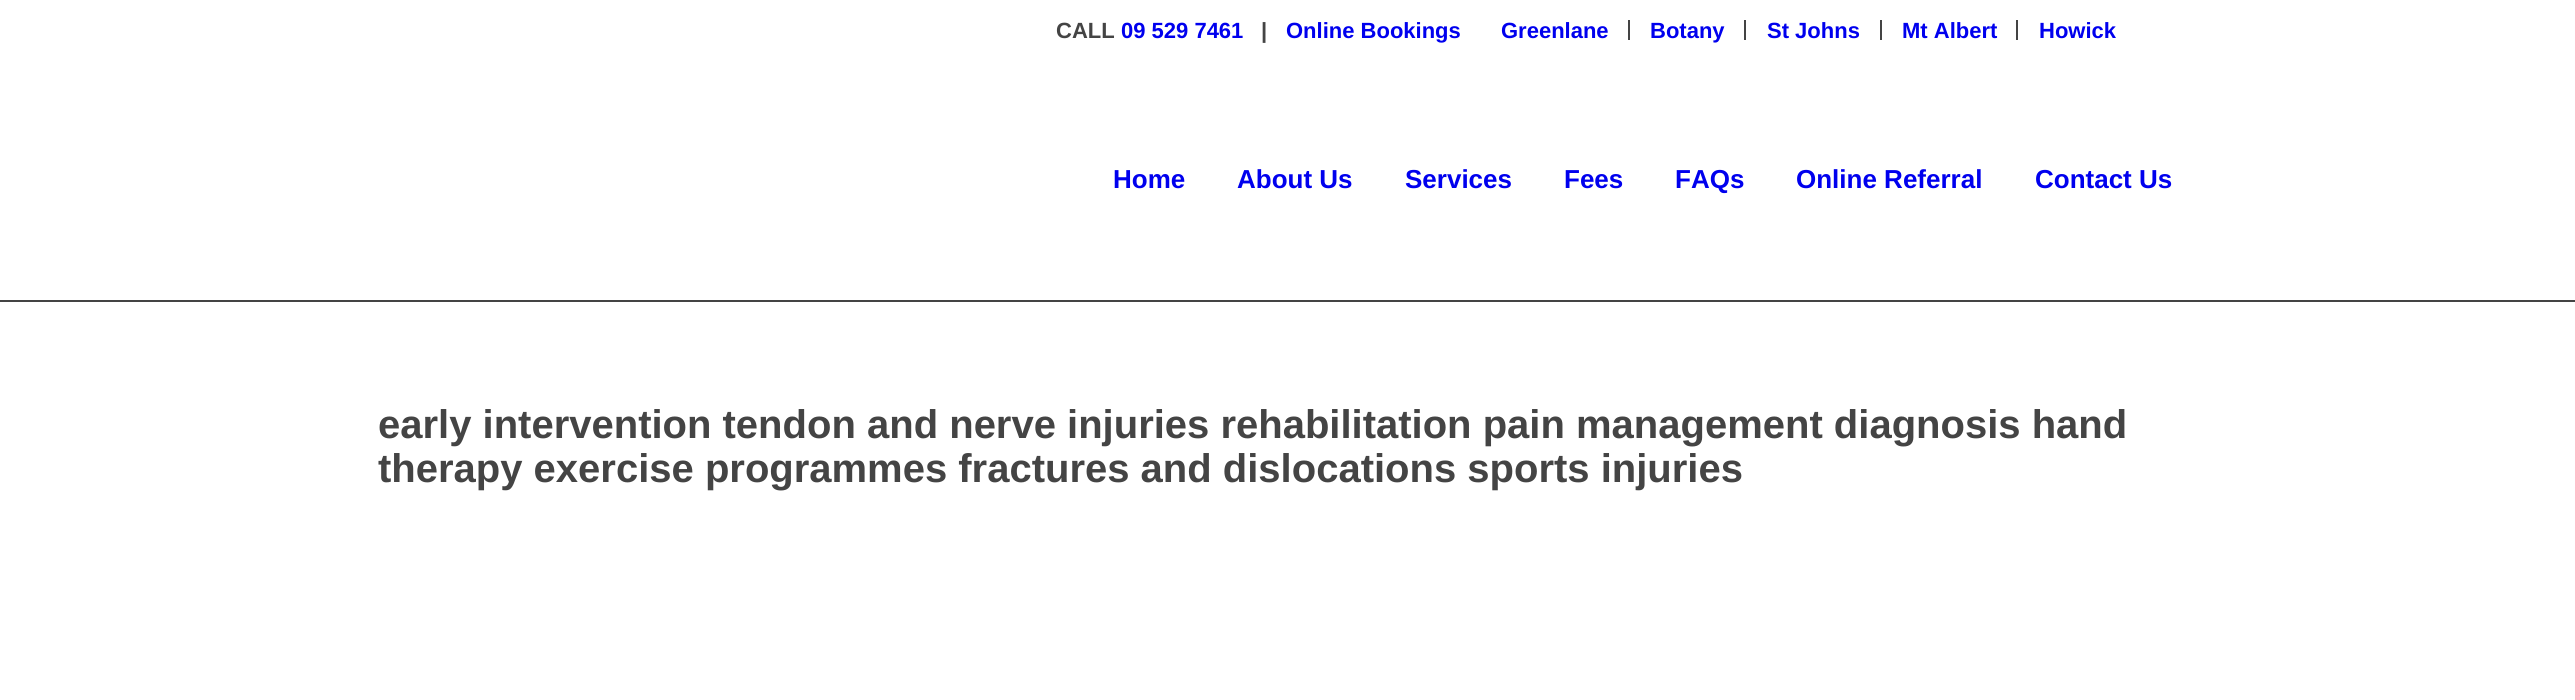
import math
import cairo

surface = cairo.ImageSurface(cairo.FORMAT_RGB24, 2575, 700)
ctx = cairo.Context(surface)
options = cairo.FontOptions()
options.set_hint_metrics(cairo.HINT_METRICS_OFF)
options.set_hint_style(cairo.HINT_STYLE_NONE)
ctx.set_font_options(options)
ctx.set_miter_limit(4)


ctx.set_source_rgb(1, 1, 1)
ctx.paint()
ctx.select_font_face("Liberation Sans", cairo.FONT_SLANT_NORMAL, cairo.FONT_WEIGHT_BOLD)
ctx.set_font_size(22)
ctx.set_source_rgb(0.267, 0.267, 0.267)
ctx.move_to(1056, 38)
ctx.show_text("CALL")
ctx.set_source_rgb(0, 0, 0.933)
ctx.move_to(1121, 38)
ctx.show_text("09 529 7461")
ctx.set_source_rgb(0.267, 0.267, 0.267)
ctx.move_to(1261, 38)
ctx.show_text("|")
ctx.set_source_rgb(0, 0, 0.933)
ctx.move_to(1286, 38)
ctx.show_text("Online Bookings")
ctx.set_source_rgb(0.267, 0.267, 0.267)
ctx.rectangle(1628, 20, 2, 20)
ctx.fill()
ctx.set_source_rgb(0, 0, 0.933)
ctx.move_to(1501, 38)
ctx.show_text("Greenlane")
ctx.set_source_rgb(0.267, 0.267, 0.267)
ctx.rectangle(1744, 20, 2, 20)
ctx.fill()
ctx.set_source_rgb(0, 0, 0.933)
ctx.move_to(1650, 38)
ctx.show_text("Botany")
ctx.set_source_rgb(0.267, 0.267, 0.267)
ctx.rectangle(1880, 20, 2, 20)
ctx.fill()
ctx.set_source_rgb(0, 0, 0.933)
ctx.move_to(1767, 38)
ctx.show_text("St Johns")
ctx.set_source_rgb(0.267, 0.267, 0.267)
ctx.rectangle(2016, 20, 2, 20)
ctx.fill()
ctx.set_source_rgb(0, 0, 0.933)
ctx.move_to(1902, 38)
ctx.show_text("Mt Albert")
ctx.move_to(2039, 38)
ctx.show_text("Howick")
ctx.set_font_size(26)
ctx.move_to(1113, 188)
ctx.show_text("Home")
ctx.move_to(1237, 188)
ctx.show_text("About Us")
ctx.move_to(1405, 188)
ctx.show_text("Services")
ctx.move_to(1564, 188)
ctx.show_text("Fees")
ctx.move_to(1675, 188)
ctx.show_text("FAQs")
ctx.move_to(1796, 188)
ctx.show_text("Online Referral")
ctx.move_to(2035, 188)
ctx.show_text("Contact Us")
ctx.set_source_rgb(0.267, 0.267, 0.267)
ctx.rectangle(0, 300, 2575, 2)
ctx.fill()
ctx.set_font_size(40)
ctx.move_to(378, 438)
ctx.show_text("early intervention tendon and nerve injuries rehabilitation pain management diagnosis hand")
ctx.move_to(378, 482)
ctx.show_text("therapy exercise programmes fractures and dislocations sports injuries")
surface.write_to_png("page.png")
